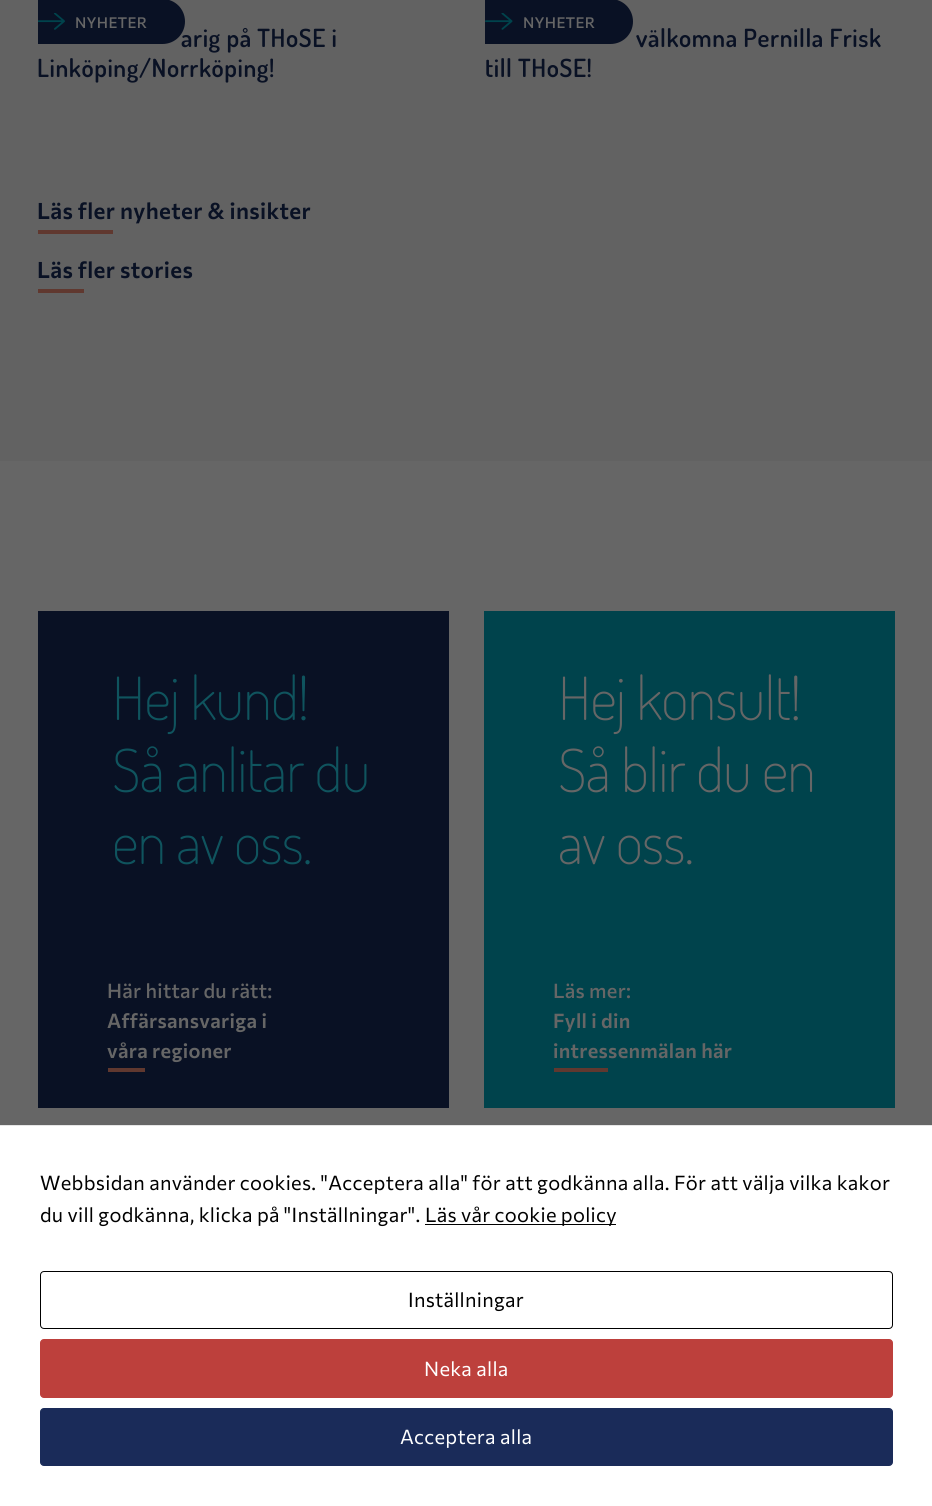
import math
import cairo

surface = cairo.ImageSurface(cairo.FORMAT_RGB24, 932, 1506)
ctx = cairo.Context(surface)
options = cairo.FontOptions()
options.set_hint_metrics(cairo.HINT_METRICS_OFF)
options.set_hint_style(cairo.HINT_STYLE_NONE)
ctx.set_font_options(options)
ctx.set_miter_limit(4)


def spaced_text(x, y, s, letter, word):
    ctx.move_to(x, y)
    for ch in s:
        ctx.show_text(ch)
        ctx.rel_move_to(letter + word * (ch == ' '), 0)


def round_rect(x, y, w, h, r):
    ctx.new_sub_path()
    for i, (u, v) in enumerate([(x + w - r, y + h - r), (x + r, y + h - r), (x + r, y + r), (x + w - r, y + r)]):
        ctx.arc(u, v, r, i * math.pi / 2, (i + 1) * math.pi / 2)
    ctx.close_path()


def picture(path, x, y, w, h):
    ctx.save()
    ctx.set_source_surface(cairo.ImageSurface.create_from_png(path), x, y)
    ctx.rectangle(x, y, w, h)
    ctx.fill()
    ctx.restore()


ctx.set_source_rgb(0.4, 0.4, 0.4)
ctx.paint()
ctx.set_source_rgb(0.384, 0.384, 0.384)
ctx.rectangle(0, 0, 932, 461)
ctx.fill()
ctx.set_source_rgb(0.039, 0.067, 0.141)
ctx.new_path()
ctx.move_to(38, -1)
ctx.line_to(162.5, -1)
ctx.curve_to(175, -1, 185, 9, 185, 21.5)
ctx.curve_to(185, 34, 175, 44, 162.5, 44)
ctx.line_to(38, 44)
ctx.close_path()
ctx.fill()
picture("img1.png", 38, 13, 27, 17)
ctx.select_font_face("Commissioner Medium")
ctx.set_font_size(15)
ctx.set_source_rgb(0.4, 0.4, 0.4)
spaced_text(75, 28, "NYHETER", 0.3, 0)
ctx.select_font_face("Dosis SemiBold")
ctx.set_font_size(25)
ctx.set_source_rgb(0.039, 0.067, 0.141)
spaced_text(181, 47, "arig på THoSE i", 0.6, 0)
spaced_text(37, 77, "Linköping/Norrköping!", 0.6, 0)
ctx.new_path()
ctx.move_to(485, -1)
ctx.line_to(610.5, -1)
ctx.curve_to(623, -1, 633, 9, 633, 21.5)
ctx.curve_to(633, 34, 623, 44, 610.5, 44)
ctx.line_to(485, 44)
ctx.close_path()
ctx.fill()
picture("img2.png", 485, 13, 28, 17)
ctx.select_font_face("Commissioner Medium")
ctx.set_font_size(15)
ctx.set_source_rgb(0.4, 0.4, 0.4)
spaced_text(523, 28, "NYHETER", 0.3, 0)
ctx.select_font_face("Dosis SemiBold")
ctx.set_font_size(25)
ctx.set_source_rgb(0.039, 0.067, 0.141)
spaced_text(636, 47, "välkomna Pernilla Frisk", 0.6, 0)
spaced_text(485, 77, "till THoSE!", 0.6, 0)
ctx.select_font_face("Commissioner SemiBold")
ctx.set_font_size(22.5)
spaced_text(37, 219, "Läs fler nyheter & insikter", 0.35, 0)
ctx.set_source_rgb(0.376, 0.22, 0.184)
ctx.rectangle(38, 230, 75, 4)
ctx.fill()
ctx.set_source_rgb(0.039, 0.067, 0.141)
spaced_text(37, 278, "Läs fler stories", 0.35, 0)
ctx.set_source_rgb(0.376, 0.22, 0.184)
ctx.rectangle(38, 289, 46, 4)
ctx.fill()
ctx.set_source_rgb(0.039, 0.067, 0.141)
ctx.rectangle(38, 611, 411, 497)
ctx.fill()
ctx.select_font_face("Dosis ExtraLight")
ctx.set_font_size(59.5)
ctx.set_source_rgb(0.059, 0.329, 0.369)
spaced_text(112, 720, "Hej kund!", -0.9, 0)
spaced_text(112, 792, "Så anlitar du", -0.9, 0)
spaced_text(112, 864, "en av oss.", -0.9, 0)
ctx.select_font_face("Commissioner Medium")
ctx.set_font_size(20)
ctx.set_source_rgb(0.4, 0.4, 0.4)
spaced_text(107, 998, "Här hittar du rätt:", 0.3, 0)
ctx.select_font_face("Commissioner SemiBold")
spaced_text(107, 1028, "Affärsansvariga i", 0.3, 0)
spaced_text(107, 1058, "våra regioner", 0.3, 0)
ctx.set_source_rgb(0.376, 0.22, 0.184)
ctx.rectangle(108, 1068, 37, 4)
ctx.fill()
ctx.set_source_rgb(0, 0.263, 0.298)
ctx.rectangle(484, 611, 411, 497)
ctx.fill()
ctx.select_font_face("Dosis ExtraLight")
ctx.set_font_size(59.5)
ctx.set_source_rgb(0.4, 0.4, 0.4)
spaced_text(558, 720, "Hej konsult!", -0.9, 0)
spaced_text(558, 792, "Så blir du en", -0.9, 0)
spaced_text(558, 864, "av oss.", -0.9, 0)
ctx.select_font_face("Commissioner Medium")
ctx.set_font_size(20)
spaced_text(553, 998, "Läs mer:", 0.3, 0)
ctx.select_font_face("Commissioner SemiBold")
spaced_text(553, 1028, "Fyll i din", 0.3, 0)
spaced_text(553, 1058, "intressenmälan här", 0.3, 0)
ctx.set_source_rgb(0.376, 0.22, 0.184)
ctx.rectangle(554, 1068, 54, 4)
ctx.fill()
ctx.set_source_rgb(1, 1, 1)
ctx.rectangle(0, 1126, 932, 380)
ctx.fill()
ctx.set_source_rgb(0.902, 0.902, 0.902)
ctx.rectangle(0, 1125, 932, 1)
ctx.fill()
ctx.select_font_face("Commissioner")
ctx.set_source_rgb(0, 0, 0)
spaced_text(40, 1190, "Webbsidan använder cookies. \"Acceptera alla\" för att godkänna alla. För att välja vilka kakor", 0.3, 0)
spaced_text(40, 1222, "du vill godkänna, klicka på \"Inställningar\".", 0.3, 0)
ctx.rectangle(425, 1224, 191, 1)
ctx.fill()
spaced_text(425, 1222, "Läs vår cookie policy", 0.3, 0)
round_rect(40.5, 1271.5, 852, 57, 3.5)
ctx.set_line_width(1)
ctx.stroke()
spaced_text(408, 1307, "Inställningar", 0.3, 0)
ctx.set_source_rgb(0.741, 0.251, 0.235)
round_rect(40.5, 1339.5, 852, 58, 3.5)
ctx.fill_preserve()
ctx.stroke()
ctx.set_source_rgb(1, 1, 1)
spaced_text(424, 1376, "Neka alla", 0.3, 0)
ctx.set_source_rgb(0.102, 0.169, 0.349)
round_rect(40.5, 1408.5, 852, 57, 3.5)
ctx.fill_preserve()
ctx.stroke()
ctx.set_source_rgb(1, 1, 1)
spaced_text(400, 1444, "Acceptera alla", 0.3, 0)
surface.write_to_png("page.png")
